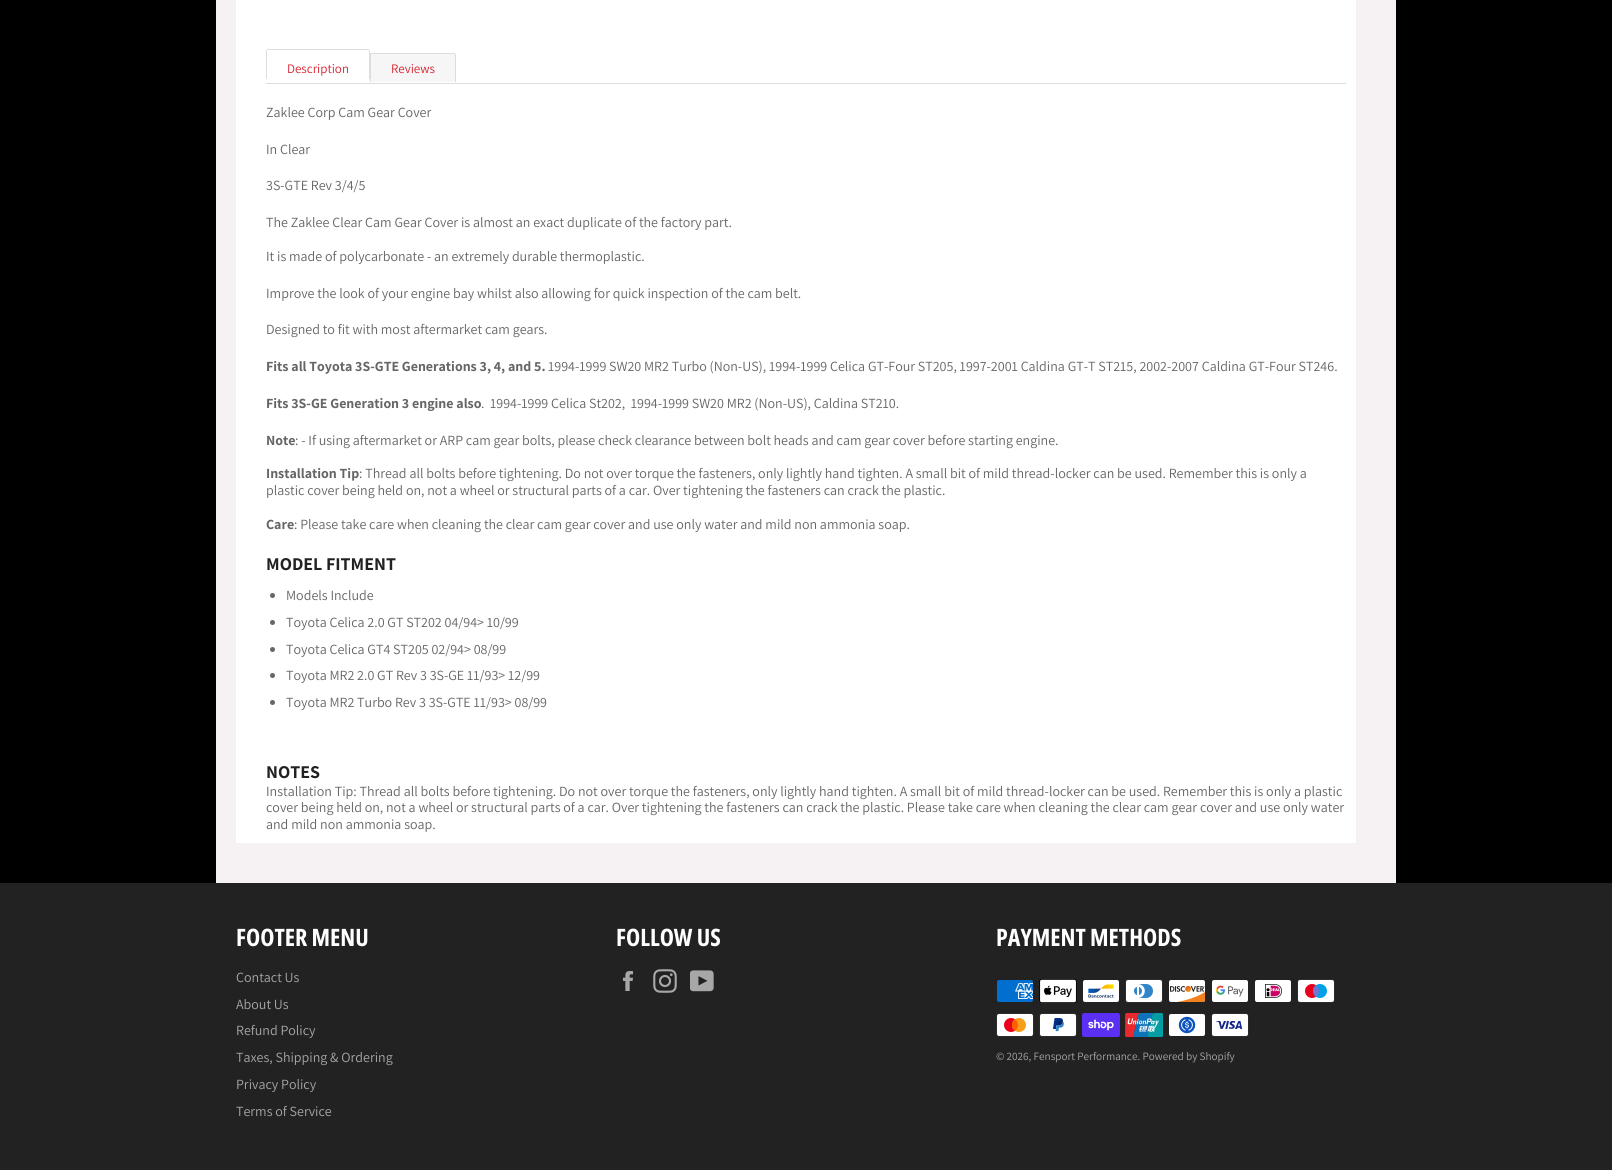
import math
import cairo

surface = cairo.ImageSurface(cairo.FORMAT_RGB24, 1612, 1170)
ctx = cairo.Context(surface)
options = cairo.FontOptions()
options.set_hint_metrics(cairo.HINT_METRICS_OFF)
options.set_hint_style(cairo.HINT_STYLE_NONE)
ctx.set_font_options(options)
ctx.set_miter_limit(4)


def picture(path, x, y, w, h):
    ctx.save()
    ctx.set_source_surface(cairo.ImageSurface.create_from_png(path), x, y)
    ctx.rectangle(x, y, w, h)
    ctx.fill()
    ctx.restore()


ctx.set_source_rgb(0, 0, 0)
ctx.paint()
ctx.set_source_rgb(0.961, 0.949, 0.957)
ctx.rectangle(216, 0, 1180, 883)
ctx.fill()
ctx.set_source_rgb(1, 1, 1)
ctx.rectangle(236, 0, 1120, 843)
ctx.fill()
ctx.set_source_rgb(0.867, 0.867, 0.867)
ctx.rectangle(266, 83, 1080, 1)
ctx.fill()
ctx.rectangle(267, 49, 102, 1)
ctx.fill()
ctx.rectangle(369, 50, 1, 29)
ctx.fill()
ctx.rectangle(266, 50, 1, 29)
ctx.fill()
ctx.select_font_face("Assistant")
ctx.set_font_size(13)
ctx.set_source_rgb(0.847, 0.137, 0.184)
ctx.move_to(287, 73)
ctx.show_text("Description")
ctx.set_source_rgb(0.961, 0.961, 0.961)
ctx.new_path()
ctx.move_to(370, 53)
ctx.line_to(454, 53)
ctx.curve_to(455, 53, 456, 54, 456, 55)
ctx.line_to(456, 82)
ctx.line_to(370, 82)
ctx.close_path()
ctx.fill()
ctx.set_source_rgb(0.867, 0.867, 0.867)
ctx.rectangle(370, 53, 85, 1)
ctx.fill()
ctx.rectangle(455, 54, 1, 28)
ctx.fill()
ctx.rectangle(370, 53, 1, 29)
ctx.fill()
ctx.set_source_rgb(0.847, 0.137, 0.184)
ctx.move_to(391, 73)
ctx.show_text("Reviews")
ctx.set_font_size(14)
ctx.set_source_rgb(0.4, 0.4, 0.4)
ctx.move_to(266, 117)
ctx.show_text("Zaklee Corp Cam Gear Cover")
ctx.move_to(266, 154)
ctx.show_text("In Clear")
ctx.move_to(266, 190)
ctx.show_text("3S-GTE Rev 3/4/5")
ctx.move_to(266, 227)
ctx.show_text("The Zaklee Clear Cam Gear Cover is almost an exact duplicate of the factory part.")
ctx.move_to(266, 261)
ctx.show_text("It is made of polycarbonate - an extremely durable thermoplastic.")
ctx.move_to(266, 298)
ctx.show_text("Improve the look of your engine bay whilst also allowing for quick inspection of the cam belt.")
ctx.move_to(266, 334)
ctx.show_text("Designed to fit with most aftermarket cam gears.")
ctx.select_font_face("Assistant", cairo.FONT_SLANT_NORMAL, cairo.FONT_WEIGHT_BOLD)
ctx.move_to(266, 371)
ctx.show_text("Fits all Toyota 3S-GTE Generations 3, 4, and 5.")
ctx.select_font_face("Assistant")
ctx.move_to(548, 371)
ctx.show_text("1994-1999 SW20 MR2 Turbo (Non-US), 1994-1999 Celica GT-Four ST205, 1997-2001 Caldina GT-T ST215, 2002-2007 Caldina GT-Four ST246.")
ctx.select_font_face("Assistant", cairo.FONT_SLANT_NORMAL, cairo.FONT_WEIGHT_BOLD)
ctx.move_to(266, 408)
ctx.show_text("Fits 3S-GE Generation 3 engine also")
ctx.select_font_face("Assistant")
ctx.move_to(481, 408)
ctx.show_text(".  1994-1999 Celica St202,  1994-1999 SW20 MR2 (Non-US), Caldina ST210.")
ctx.select_font_face("Assistant", cairo.FONT_SLANT_NORMAL, cairo.FONT_WEIGHT_BOLD)
ctx.move_to(266, 445)
ctx.show_text("Note")
ctx.select_font_face("Assistant")
ctx.move_to(295, 445)
ctx.show_text(": - If using aftermarket or ARP cam gear bolts, please check clearance between bolt heads and cam gear cover before starting engine.")
ctx.select_font_face("Assistant", cairo.FONT_SLANT_NORMAL, cairo.FONT_WEIGHT_BOLD)
ctx.move_to(266, 478)
ctx.show_text("Installation Tip")
ctx.select_font_face("Assistant")
ctx.move_to(359, 478)
ctx.show_text(": Thread all bolts before tightening. Do not over torque the fasteners, only lightly hand tighten. A small bit of mild thread-locker can be used. Remember this is only a")
ctx.move_to(266, 495)
ctx.show_text("plastic cover being held on, not a wheel or structural parts of a car. Over tightening the fasteners can crack the plastic.")
ctx.select_font_face("Assistant", cairo.FONT_SLANT_NORMAL, cairo.FONT_WEIGHT_BOLD)
ctx.move_to(266, 529)
ctx.show_text("Care")
ctx.select_font_face("Assistant")
ctx.move_to(294, 529)
ctx.show_text(": Please take care when cleaning the clear cam gear cover and use only water and mild non ammonia soap.")
ctx.select_font_face("Assistant", cairo.FONT_SLANT_NORMAL, cairo.FONT_WEIGHT_BOLD)
ctx.set_font_size(18)
ctx.set_source_rgb(0.133, 0.133, 0.133)
ctx.move_to(266, 570)
ctx.show_text("MODEL FITMENT")
ctx.set_source_rgb(0.4, 0.4, 0.4)
ctx.new_path()
ctx.arc(272.5, 595.5, 2.5, 0, 2 * math.pi)
ctx.fill()
ctx.select_font_face("Assistant")
ctx.set_font_size(14)
ctx.move_to(286, 600)
ctx.show_text("Models Include")
ctx.new_path()
ctx.arc(272.5, 622.5, 2.5, 0, 2 * math.pi)
ctx.fill()
ctx.move_to(286, 627)
ctx.show_text("Toyota Celica 2.0 GT ST202 04/94> 10/99")
ctx.new_path()
ctx.arc(272.5, 649.5, 2.5, 0, 2 * math.pi)
ctx.fill()
ctx.move_to(286, 654)
ctx.show_text("Toyota Celica GT4 ST205 02/94> 08/99")
ctx.new_path()
ctx.arc(272.5, 675.5, 2.5, 0, 2 * math.pi)
ctx.fill()
ctx.move_to(286, 680)
ctx.show_text("Toyota MR2 2.0 GT Rev 3 3S-GE 11/93> 12/99")
ctx.new_path()
ctx.arc(272.5, 702.5, 2.5, 0, 2 * math.pi)
ctx.fill()
ctx.move_to(286, 707)
ctx.show_text("Toyota MR2 Turbo Rev 3 3S-GTE 11/93> 08/99")
ctx.select_font_face("Assistant", cairo.FONT_SLANT_NORMAL, cairo.FONT_WEIGHT_BOLD)
ctx.set_font_size(18)
ctx.set_source_rgb(0.133, 0.133, 0.133)
ctx.move_to(266, 778)
ctx.show_text("NOTES")
ctx.select_font_face("Assistant")
ctx.set_font_size(14)
ctx.set_source_rgb(0.4, 0.4, 0.4)
ctx.move_to(266, 796)
ctx.show_text("Installation Tip: Thread all bolts before tightening. Do not over torque the fasteners, only lightly hand tighten. A small bit of mild thread-locker can be used. Remember this is only a plastic")
ctx.move_to(266, 812)
ctx.show_text("cover being held on, not a wheel or structural parts of a car. Over tightening the fasteners can crack the plastic. Please take care when cleaning the clear cam gear cover and use only water")
ctx.move_to(266, 829)
ctx.show_text("and mild non ammonia soap.")
ctx.set_source_rgb(0.133, 0.133, 0.133)
ctx.rectangle(0, 883, 1612, 287)
ctx.fill()
ctx.select_font_face("Open Sans Condensed", cairo.FONT_SLANT_NORMAL, cairo.FONT_WEIGHT_BOLD)
ctx.set_font_size(24)
ctx.set_source_rgb(1, 1, 1)
ctx.move_to(236, 946)
ctx.show_text("FOOTER MENU")
ctx.select_font_face("Assistant")
ctx.set_font_size(14)
ctx.set_source_rgb(0.655, 0.655, 0.655)
ctx.move_to(236, 982)
ctx.show_text("Contact Us")
ctx.move_to(236, 1009)
ctx.show_text("About Us")
ctx.move_to(236, 1035)
ctx.show_text("Refund Policy")
ctx.move_to(236, 1062)
ctx.show_text("Taxes, Shipping & Ordering")
ctx.move_to(236, 1089)
ctx.show_text("Privacy Policy")
ctx.move_to(236, 1116)
ctx.show_text("Terms of Service")
ctx.select_font_face("Open Sans Condensed", cairo.FONT_SLANT_NORMAL, cairo.FONT_WEIGHT_BOLD)
ctx.set_font_size(24)
ctx.set_source_rgb(1, 1, 1)
ctx.move_to(616, 946)
ctx.show_text("FOLLOW US")
picture("img1.png", 623, 971, 10, 20)
picture("img2.png", 653, 969, 24, 24)
picture("img3.png", 690, 970, 24, 22)
ctx.move_to(996, 946)
ctx.show_text("PAYMENT METHODS")
picture("img4.png", 997, 980, 36, 22)
picture("img5.png", 1039, 979, 38, 24)
picture("img6.png", 1083, 980, 36, 22)
picture("img7.png", 1125, 979, 38, 24)
picture("img8.png", 1169, 980, 36, 22)
picture("img9.png", 1212, 980, 36, 22)
picture("img10.png", 1255, 980, 36, 22)
picture("img11.png", 1297, 979, 38, 24)
picture("img12.png", 996, 1013, 38, 24)
picture("img13.png", 1039, 1013, 38, 24)
picture("img14.png", 1082, 1013, 38, 24)
picture("img15.png", 1125, 1013, 38, 24)
picture("img16.png", 1169, 1014, 36, 22)
picture("img17.png", 1211, 1013, 38, 24)
ctx.select_font_face("Assistant")
ctx.set_font_size(11.2)
ctx.set_source_rgb(0.655, 0.655, 0.655)
ctx.move_to(996, 1060)
ctx.show_text("© 2026, Fensport Performance. Powered by Shopify")
surface.write_to_png("page.png")
